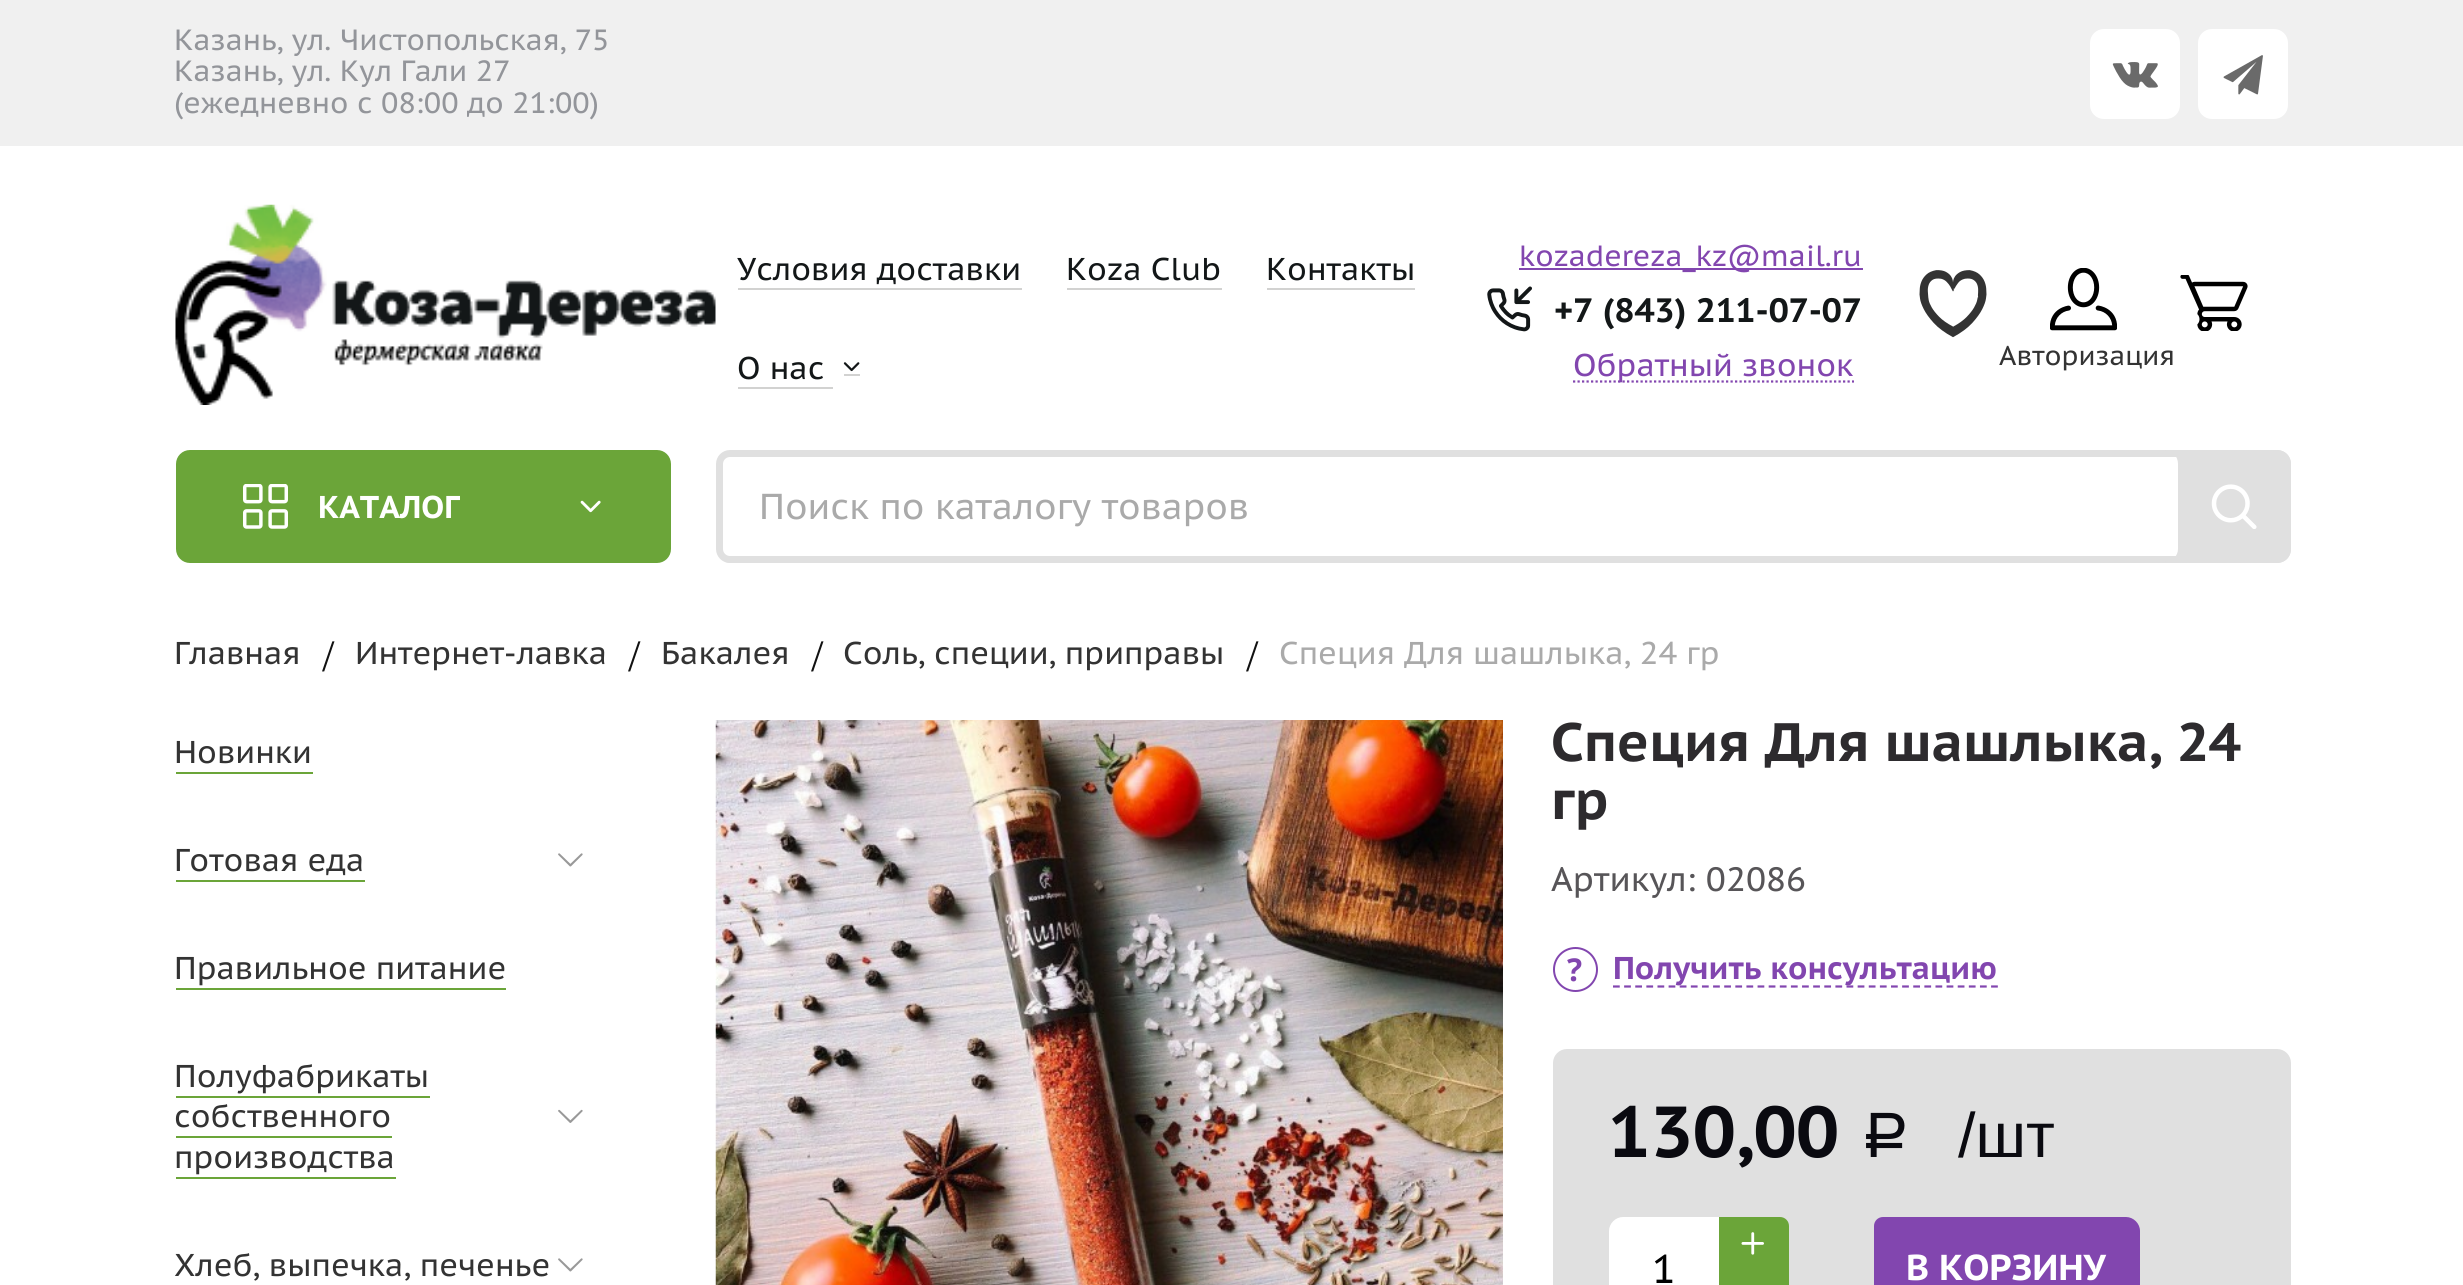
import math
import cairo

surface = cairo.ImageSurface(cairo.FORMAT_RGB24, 2463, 1285)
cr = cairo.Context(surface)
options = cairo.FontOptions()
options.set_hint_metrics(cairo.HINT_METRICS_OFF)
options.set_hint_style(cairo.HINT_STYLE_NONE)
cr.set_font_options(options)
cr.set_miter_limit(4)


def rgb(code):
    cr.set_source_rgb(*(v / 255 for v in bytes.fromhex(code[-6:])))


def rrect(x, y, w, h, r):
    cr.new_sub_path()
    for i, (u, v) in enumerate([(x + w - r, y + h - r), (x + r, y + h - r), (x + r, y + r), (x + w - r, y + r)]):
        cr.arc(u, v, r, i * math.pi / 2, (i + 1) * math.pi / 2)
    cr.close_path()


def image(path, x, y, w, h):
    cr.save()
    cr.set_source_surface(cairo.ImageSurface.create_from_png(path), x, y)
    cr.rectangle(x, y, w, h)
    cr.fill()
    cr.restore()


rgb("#ffffff")
cr.paint()
rgb("#f0f0f0")
cr.rectangle(0, 0, 2463, 146)
cr.fill()
rgb("#ffffff")
rrect(2090, 29, 90, 90, 14)
cr.fill()
image("img/1.png", 2112, 62, 46, 26)
rrect(2198, 29, 90, 90, 14)
cr.fill()
image("img/2.png", 2223, 55, 40, 40)
image("img/3.png", 175, 204, 541, 201)
for x, y, w, h, color in [
    (738, 288, 284, 2, "#d2d2d1"),
    (1067, 288, 155, 2, "#d2d2d1"),
    (1267, 288, 148, 2, "#d2d2d1"),
    (738, 387, 95, 2, "#d2d2d1"),
    (844, 374, 16, 2, "#d2d2d1"),
]:
    rgb(color)
    cr.rectangle(x, y, w, h)
    cr.fill()
image("img/4.png", 843, 362, 17, 10)
rgb("#8246af")
cr.rectangle(1519, 268, 344, 2)
cr.fill()
image("img/5.png", 1487, 286, 45, 46)
cr.new_path()
cr.move_to(1573, 381.5)
cr.line_to(1854, 381.5)
cr.set_line_width(2.2)
cr.set_dash([2.25, 2.25])
cr.stroke()
image("img/6.png", 1919, 270, 68, 68)
image("img/7.png", 2180, 275, 68, 56)
image("img/8.png", 2050, 268, 67, 63)
rgb("#6ba539")
rrect(176, 450, 495, 113, 14)
cr.fill()
image("img/9.png", 243, 484, 45, 45)
image("img/10.png", 580, 500, 21, 13)
rrect(719.5, 453.5, 1568, 106, 10.5)
rgb("#e0e0e0")
cr.set_line_width(7)
cr.set_dash([])
cr.stroke()
cr.new_path()
cr.move_to(725, 562)
cr.line_to(730, 563)
cr.line_to(2277, 563)
cr.curve_to(2285, 563, 2291, 557, 2291, 549)
cr.line_to(2291, 464)
cr.curve_to(2291, 456, 2285, 450, 2277, 450)
cr.line_to(2164, 450)
cr.curve_to(2172, 450, 2178, 456, 2178, 464)
cr.line_to(2178, 549)
cr.curve_to(2178, 556, 2172, 562, 2164, 562)
cr.close_path()
cr.fill()
image("img/11.png", 2211, 484, 46, 45)
rgb("#6ba539")
cr.rectangle(176, 772, 137, 2)
cr.fill()
cr.rectangle(176, 880, 189, 2)
cr.fill()
image("img/12.png", 558, 853, 25, 14)
for x, y, w, h, color in [
    (176, 988, 330, 2, "#6ba539"),
    (176, 1096, 254, 2, "#6ba539"),
    (176, 1136, 216, 2, "#6ba539"),
    (176, 1177, 220, 2, "#6ba539"),
]:
    rgb(color)
    cr.rectangle(x, y, w, h)
    cr.fill()
image("img/13.png", 558, 1109, 25, 14)
image("img/12.png", 558, 1258, 25, 14)
image("img/14.png", 715, 720, 788, 565)
cr.arc(1575.5, 969.5, 21.5, 0, 2 * math.pi)
rgb("#8246af")
cr.set_line_width(2)
cr.stroke()
cr.new_path()
cr.move_to(1613, 986.5)
cr.line_to(1998, 986.5)
cr.set_line_width(2.2)
cr.set_dash([6.75, 4.37])
cr.stroke()
rgb("#e0e0e0")
rrect(1553, 1049, 738, 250, 14)
cr.fill()
rgb("#ffffff")
cr.new_path()
cr.move_to(1623, 1217)
cr.line_to(1719, 1217)
cr.line_to(1719, 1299)
cr.line_to(1623, 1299)
cr.curve_to(1615.5, 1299, 1609, 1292.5, 1609, 1285)
cr.line_to(1609, 1231)
cr.curve_to(1609, 1223.5, 1615.5, 1217, 1623, 1217)
cr.close_path()
cr.fill()
rgb("#6ba539")
cr.new_path()
cr.move_to(1719, 1217)
cr.line_to(1780, 1217)
cr.curve_to(1785, 1217, 1789, 1221, 1789, 1226)
cr.line_to(1789, 1269)
cr.line_to(1719, 1269)
cr.close_path()
cr.fill()
image("img/15.png", 1741, 1232, 23, 23)
cr.rectangle(1719, 1269, 70, 16)
cr.fill()
rgb("#8246af")
cr.new_path()
cr.move_to(1883, 1217)
cr.line_to(2126, 1217)
cr.curve_to(2133.5, 1217, 2140, 1223.5, 2140, 1231)
cr.line_to(2140, 1285)
cr.curve_to(2140, 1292.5, 2133.5, 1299, 2126, 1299)
cr.line_to(1883, 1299)
cr.curve_to(1878, 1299, 1874, 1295, 1874, 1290)
cr.line_to(1874, 1226)
cr.curve_to(1874, 1221, 1878, 1217, 1883, 1217)
cr.close_path()
cr.fill()
cr.select_font_face("PT Sans Caption")
cr.set_font_size(29.25)
rgb("#93959a")
for x, y, s in [
    (174, 50, "Казань, ул. Чистопольская, 75"),
    (174, 81, "Казань, ул. Кул Гали 27"),
    (174, 113, "(ежедневно с 08:00 до 21:00)"),
]:
    cr.move_to(x, y)
    cr.show_text(s)
cr.set_font_size(31.5)
rgb("#131718")
for x, y, s in [
    (737, 280, "Условия доставки"),
    (1066, 280, "Koza Club"),
    (1266, 280, "Контакты"),
    (737, 379, "О нас"),
]:
    cr.move_to(x, y)
    cr.show_text(s)
cr.set_font_size(29.25)
rgb("#8246af")
cr.move_to(1519, 266)
cr.show_text("kozadereza_kz@mail.ru")
cr.select_font_face("PT Sans Caption", cairo.FONT_SLANT_NORMAL, cairo.FONT_WEIGHT_BOLD)
cr.set_font_size(33.75)
rgb("#131718")
cr.move_to(1554, 322)
cr.show_text("+7 (843) 211-07-07")
cr.select_font_face("PT Sans Caption")
cr.set_font_size(31.5)
rgb("#8246af")
cr.move_to(1573, 376)
cr.show_text("Обратный звонок")
cr.set_font_size(27)
rgb("#333333")
cr.move_to(1999, 365)
cr.show_text("Авторизация")
cr.select_font_face("PT Sans Caption", cairo.FONT_SLANT_NORMAL, cairo.FONT_WEIGHT_BOLD)
cr.set_font_size(31.5)
rgb("#ffffff")
cr.move_to(318, 518)
cr.show_text("КАТАЛОГ")
cr.select_font_face("PT Sans Caption")
cr.set_font_size(36)
rgb("#aaaaaa")
cr.move_to(759, 519)
cr.show_text("Поиск по каталогу товаров")
cr.set_font_size(31.5)
rgb("#333333")
cr.move_to(174, 664)
cr.show_text("Главная")
cr.select_font_face("Liberation Serif")
cr.set_font_size(45)
rgb("#111111")
cr.move_to(322, 671)
cr.show_text("/")
cr.select_font_face("PT Sans Caption")
cr.set_font_size(31.5)
rgb("#333333")
cr.move_to(355, 664)
cr.show_text("Интернет-лавка")
cr.select_font_face("Liberation Serif")
cr.set_font_size(45)
rgb("#111111")
cr.move_to(628, 671)
cr.show_text("/")
cr.select_font_face("PT Sans Caption")
cr.set_font_size(31.5)
rgb("#333333")
cr.move_to(661, 664)
cr.show_text("Бакалея")
cr.select_font_face("Liberation Serif")
cr.set_font_size(45)
rgb("#111111")
cr.move_to(811, 671)
cr.show_text("/")
cr.select_font_face("PT Sans Caption")
cr.set_font_size(31.5)
rgb("#333333")
cr.move_to(843, 664)
cr.show_text("Соль, специи, приправы")
cr.select_font_face("Liberation Serif")
cr.set_font_size(45)
rgb("#111111")
cr.move_to(1246, 671)
cr.show_text("/")
cr.select_font_face("PT Sans Caption")
cr.set_font_size(31.5)
rgb("#aaaaaa")
cr.move_to(1279, 664)
cr.show_text("Специя Для шашлыка, 24 гр")
rgb("#333333")
for x, y, s in [
    (174, 763, "Новинки"),
    (174, 871, "Готовая еда"),
    (174, 979, "Правильное питание"),
    (174, 1087, "Полуфабрикаты"),
    (174, 1127, "собственного"),
    (174, 1168, "производства"),
    (174, 1276, "Хлеб, выпечка, печенье"),
]:
    cr.move_to(x, y)
    cr.show_text(s)
cr.select_font_face("PT Sans Caption", cairo.FONT_SLANT_NORMAL, cairo.FONT_WEIGHT_BOLD)
cr.set_font_size(54)
rgb("#2d2b2e")
cr.move_to(1551, 761)
cr.show_text("Специя Для шашлыка, 24")
cr.move_to(1551, 819)
cr.show_text("гр")
cr.select_font_face("PT Sans Caption")
cr.set_font_size(33.75)
rgb("#575558")
cr.move_to(1551, 891)
cr.show_text("Артикул: 02086")
cr.select_font_face("Noto Sans", cairo.FONT_SLANT_NORMAL, cairo.FONT_WEIGHT_BOLD)
cr.set_font_size(31.5)
rgb("#8246af")
cr.move_to(1567, 981)
cr.show_text("?")
cr.select_font_face("PT Sans Caption", cairo.FONT_SLANT_NORMAL, cairo.FONT_WEIGHT_BOLD)
cr.move_to(1613, 979)
cr.show_text("Получить консультацию")
cr.set_font_size(72)
rgb("#0a0a10")
cr.move_to(1608, 1157)
cr.show_text("130,00")
cr.select_font_face("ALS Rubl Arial")
cr.set_font_size(63)
cr.move_to(1861, 1157)
cr.show_text("Р")
cr.select_font_face("Liberation Sans")
cr.move_to(1958, 1157)
cr.show_text("/шт")
cr.select_font_face("PT Sans Caption")
cr.set_font_size(40)
rgb("#000000")
cr.move_to(1652, 1283)
cr.show_text("1")
cr.select_font_face("PT Sans Caption", cairo.FONT_SLANT_NORMAL, cairo.FONT_WEIGHT_BOLD)
cr.set_font_size(36)
rgb("#ffffff")
cr.move_to(1906, 1280)
cr.show_text("В КОРЗИНУ")
surface.write_to_png("page.png")
